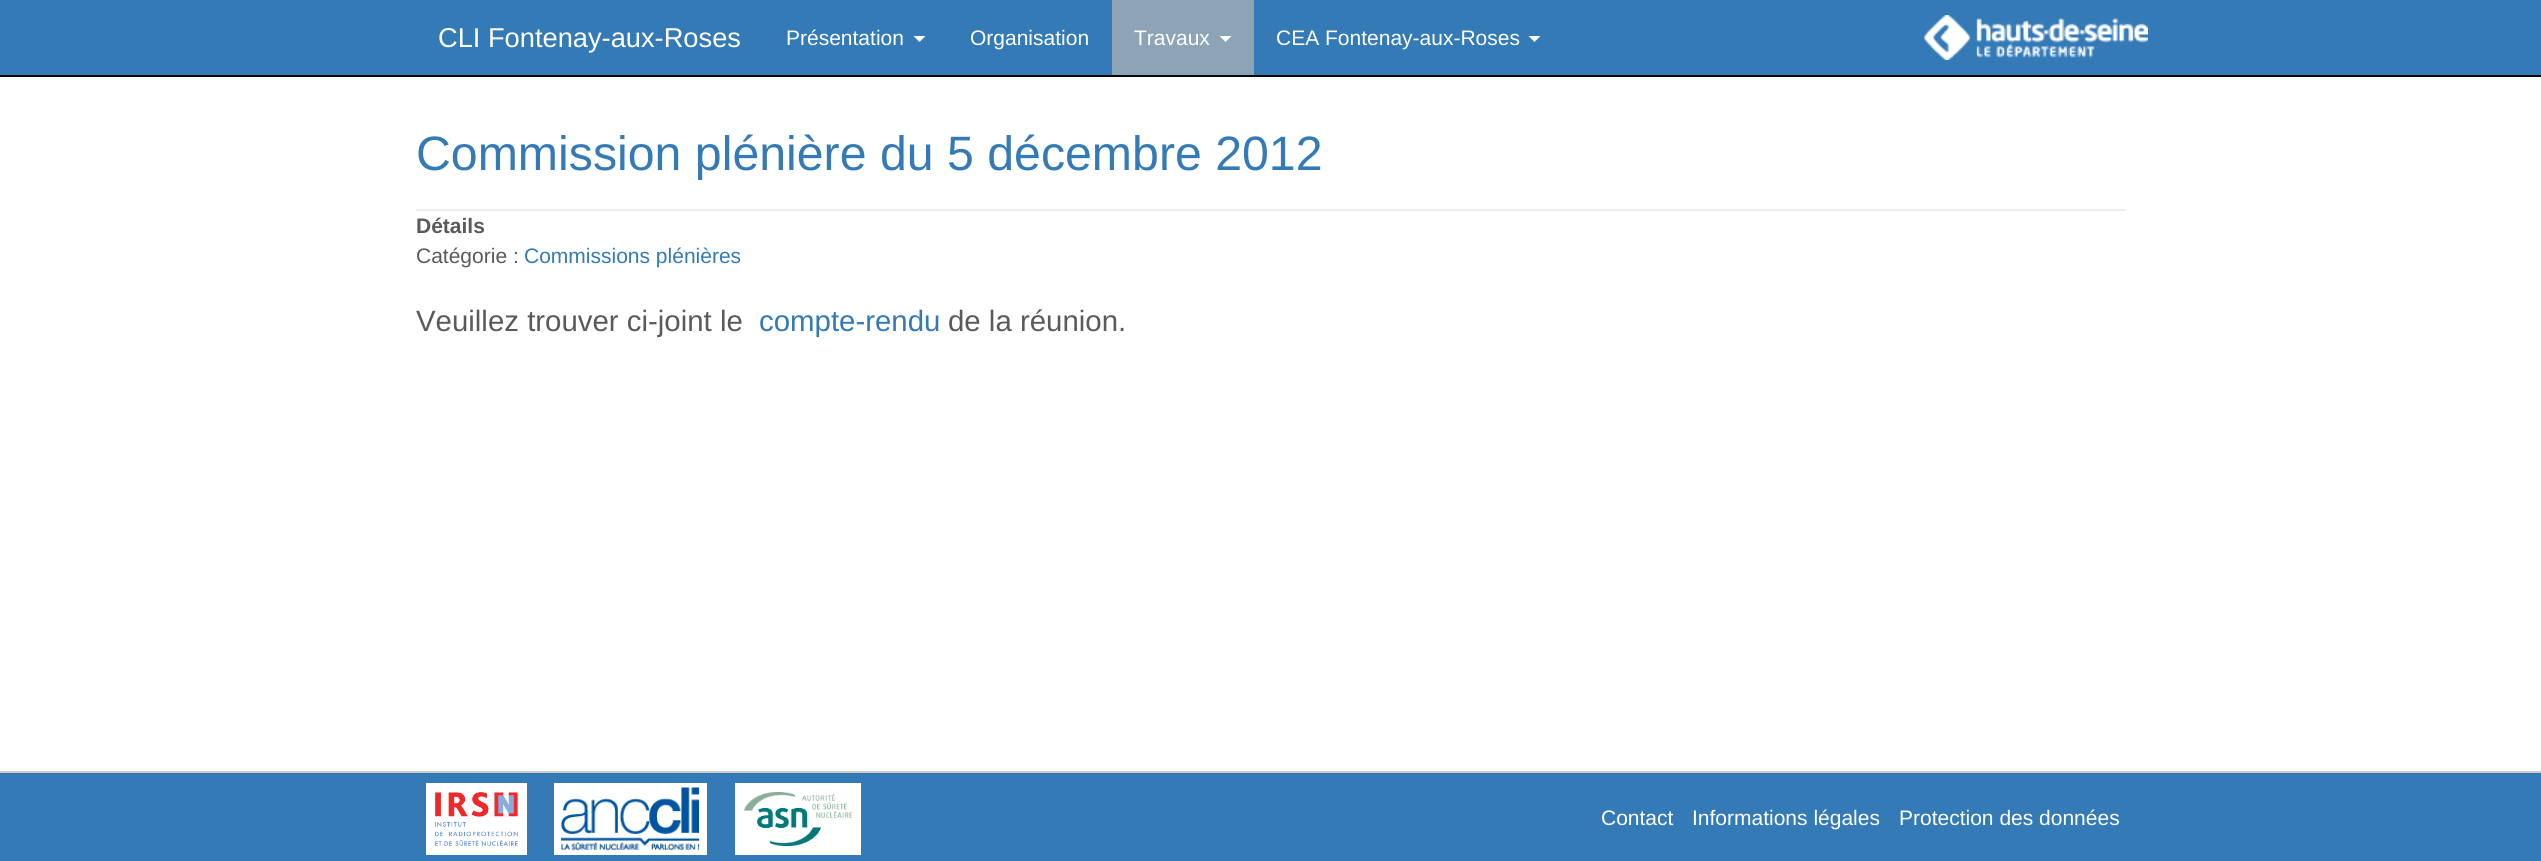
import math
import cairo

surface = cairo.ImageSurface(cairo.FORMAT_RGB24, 2541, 861)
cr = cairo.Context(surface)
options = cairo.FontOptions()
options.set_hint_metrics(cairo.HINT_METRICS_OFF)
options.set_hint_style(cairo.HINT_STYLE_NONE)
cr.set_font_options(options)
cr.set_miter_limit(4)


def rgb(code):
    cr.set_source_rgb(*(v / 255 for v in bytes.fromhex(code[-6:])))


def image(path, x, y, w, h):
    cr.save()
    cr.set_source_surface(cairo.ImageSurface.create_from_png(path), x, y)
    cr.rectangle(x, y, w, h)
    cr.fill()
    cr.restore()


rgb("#ffffff")
cr.paint()
rgb("#337ab7")
cr.rectangle(0, 0, 2541, 75)
cr.fill()
rgb("#080808")
cr.rectangle(0, 75, 2541, 2)
cr.fill()
rgb("#ffffff")
cr.new_path()
cr.move_to(913.5, 36)
cr.line_to(925.5, 36)
cr.line_to(919.5, 42)
cr.close_path()
cr.fill()
rgb("#8da3b6")
cr.rectangle(1112, 0, 142, 75)
cr.fill()
rgb("#ffffff")
cr.new_path()
cr.move_to(1219.5, 36)
cr.line_to(1231.5, 36)
cr.line_to(1225.5, 42)
cr.close_path()
cr.fill()
cr.new_path()
cr.move_to(1528.5, 36)
cr.line_to(1540.5, 36)
cr.line_to(1534.5, 42)
cr.close_path()
cr.fill()
image("img/1.png", 1924, 15, 224, 45)
for x, y, w, h, color in [
    (416, 209, 1710, 2, "#eeeeee"),
    (0, 773, 2541, 88, "#337ab7"),
    (0, 771, 2541, 2, "#cccccc"),
    (426, 783, 101, 72, "#ffffff"),
    (554, 783, 153, 72, "#ffffff"),
    (735, 783, 126, 72, "#ffffff"),
]:
    rgb(color)
    cr.rectangle(x, y, w, h)
    cr.fill()
image("img/2.png", 435, 792, 83, 54)
image("img/3.png", 561, 787, 139, 64)
image("img/4.png", 744, 791, 109, 56)
cr.select_font_face("Liberation Sans")
cr.set_font_size(27.25)
cr.move_to(438, 47)
cr.show_text("CLI Fontenay-aux-Roses")
cr.set_font_size(21)
for x, y, s in [
    (786, 45, "Présentation"),
    (970, 45, "Organisation"),
    (1134, 45, "Travaux"),
    (1276, 45, "CEA Fontenay-aux-Roses"),
]:
    cr.move_to(x, y)
    cr.show_text(s)
cr.set_font_size(48.25)
rgb("#337ab7")
cr.move_to(416, 170)
cr.show_text("Commission plénière du 5 décembre 2012")
cr.select_font_face("Liberation Sans", cairo.FONT_SLANT_NORMAL, cairo.FONT_WEIGHT_BOLD)
cr.set_font_size(21)
rgb("#5a5a5a")
cr.move_to(416, 233)
cr.show_text("Détails")
cr.select_font_face("Liberation Sans")
cr.move_to(416, 263)
cr.show_text("Catégorie :")
rgb("#337ab7")
cr.move_to(524, 263)
cr.show_text("Commissions plénières")
cr.set_font_size(29.4)
rgb("#5a5a5a")
cr.move_to(416, 331)
cr.show_text("Veuillez trouver ci-joint le")
rgb("#337ab7")
cr.move_to(759, 331)
cr.show_text("compte-rendu")
rgb("#5a5a5a")
cr.move_to(948, 331)
cr.show_text("de la réunion.")
cr.set_font_size(21)
rgb("#ffffff")
for x, y, s in [
    (1601, 825, "Contact"),
    (1692, 825, "Informations légales"),
    (1899, 825, "Protection des données"),
]:
    cr.move_to(x, y)
    cr.show_text(s)
surface.write_to_png("page.png")
